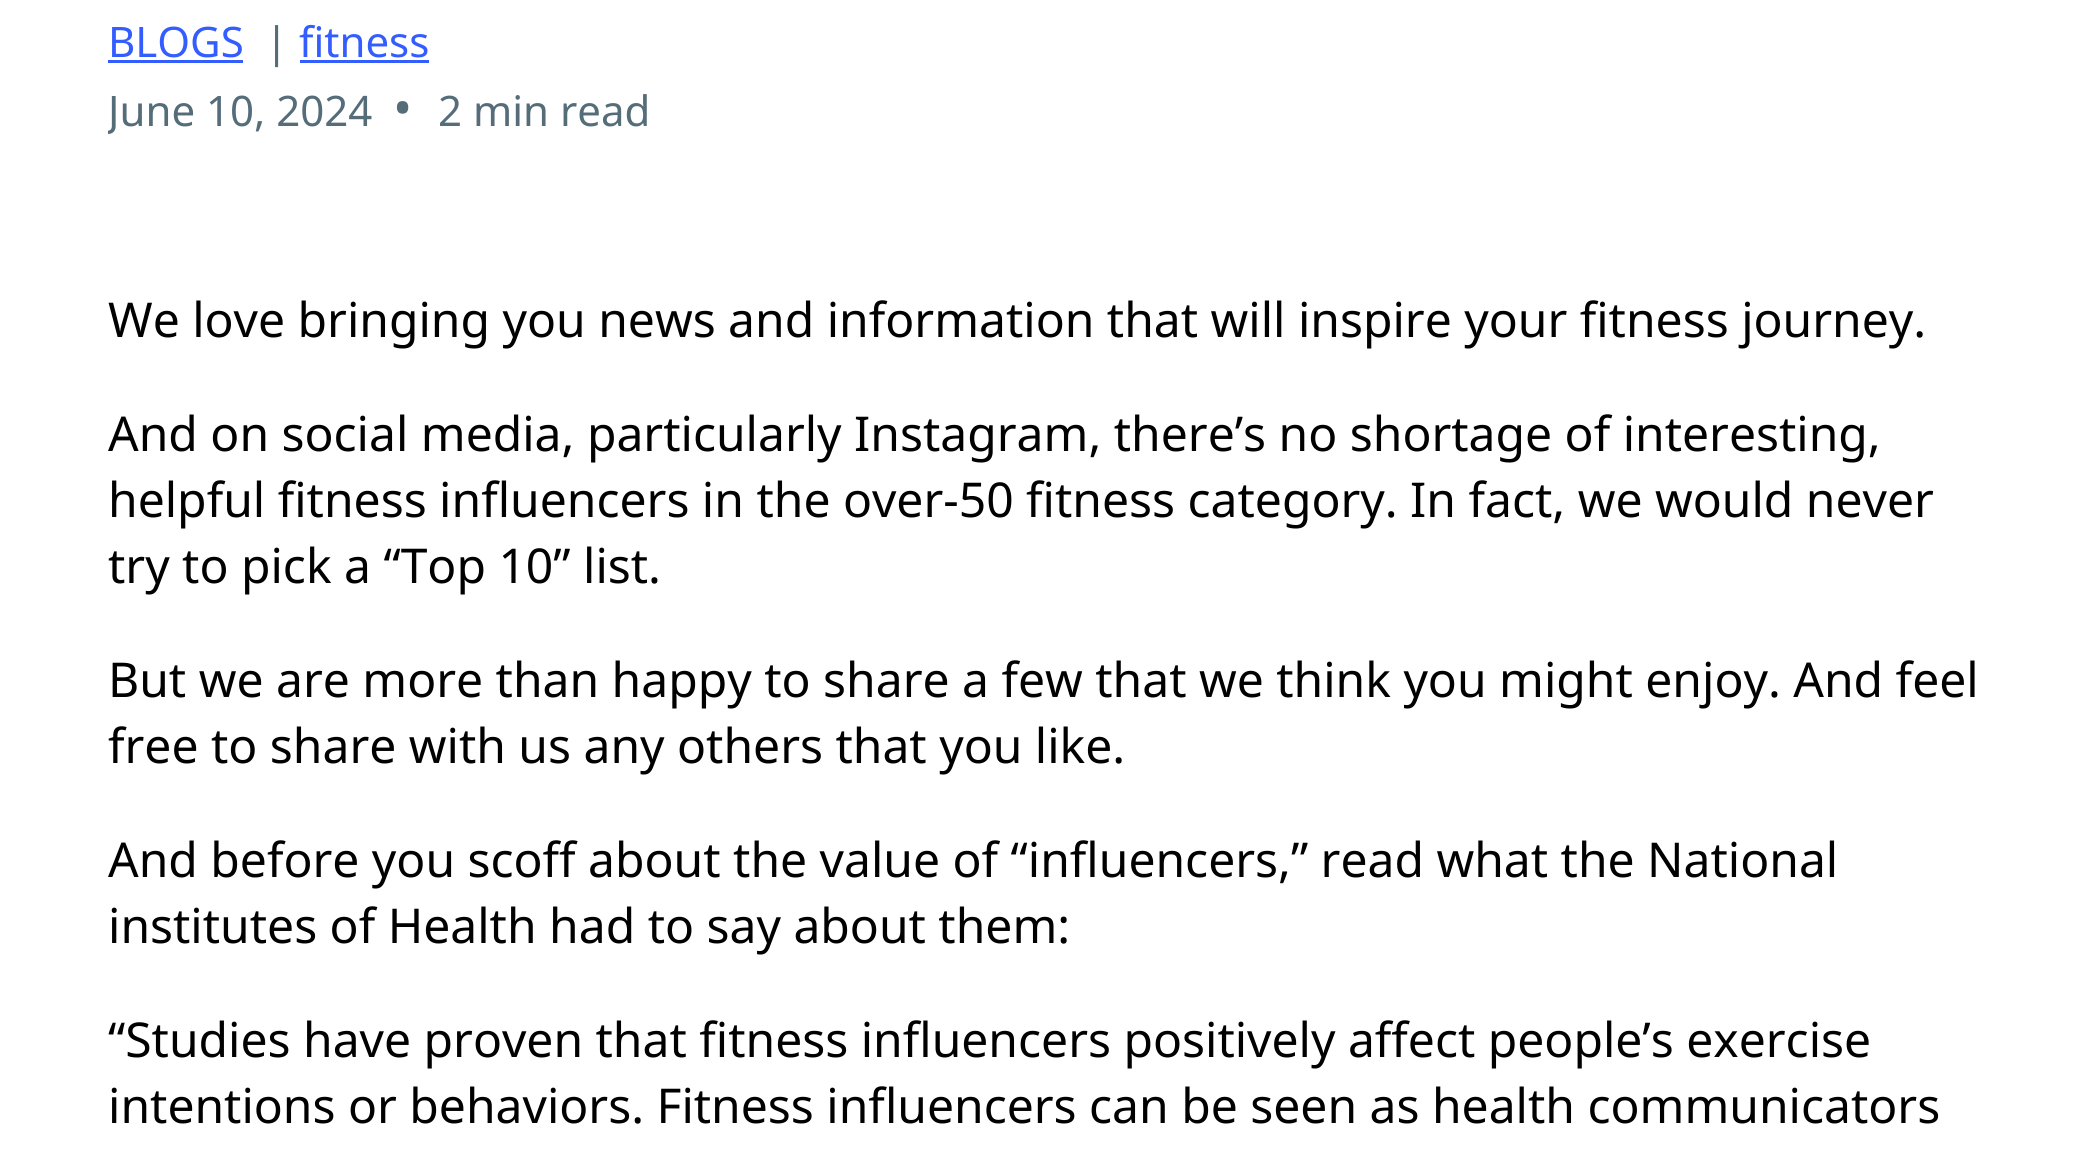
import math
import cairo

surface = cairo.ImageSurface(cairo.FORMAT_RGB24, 2092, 1152)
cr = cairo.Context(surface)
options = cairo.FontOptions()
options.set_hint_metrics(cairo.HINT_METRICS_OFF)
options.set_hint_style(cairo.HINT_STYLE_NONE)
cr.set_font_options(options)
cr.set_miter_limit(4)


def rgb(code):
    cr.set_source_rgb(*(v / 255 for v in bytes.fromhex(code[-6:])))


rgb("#ffffff")
cr.paint()
rgb("#335dff")
cr.rectangle(108, 60, 135, 3)
cr.fill()
cr.rectangle(300, 60, 129, 3)
cr.fill()
cr.select_font_face("Noto Sans")
cr.set_font_size(42)
cr.move_to(108, 57)
cr.show_text("BLOGS")
rgb("#556c79")
cr.move_to(265, 57)
cr.show_text("|")
rgb("#335dff")
cr.move_to(299, 57)
cr.show_text("fitness")
cr.save()
cr.rectangle(108, 0, 1878, 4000)
cr.clip()
rgb("#556c79")
cr.move_to(108, 126)
cr.show_text("June 10, 2024")
cr.restore()
cr.set_font_size(51)
rgb("#556c79")
cr.move_to(393, 126)
cr.show_text("•")
cr.set_font_size(42)
cr.move_to(438, 126)
cr.show_text("2 min read")
cr.set_font_size(48)
rgb("#000000")
for x, y, s in [
    (108, 337, "We love bringing you news and information that will inspire your fitness journey."),
    (108, 451, "And on social media, particularly Instagram, there’s no shortage of interesting,"),
    (108, 517, "helpful fitness influencers in the over-50 fitness category. In fact, we would never"),
    (108, 583, "try to pick a “Top 10” list."),
    (108, 697, "But we are more than happy to share a few that we think you might enjoy. And feel"),
    (108, 763, "free to share with us any others that you like."),
    (108, 877, "And before you scoff about the value of “influencers,” read what the National"),
    (108, 943, "institutes of Health had to say about them:"),
    (108, 1057, "“Studies have proven that fitness influencers positively affect people’s exercise"),
    (108, 1123, "intentions or behaviors. Fitness influencers can be seen as health communicators"),
]:
    cr.move_to(x, y)
    cr.show_text(s)
surface.write_to_png("page.png")
